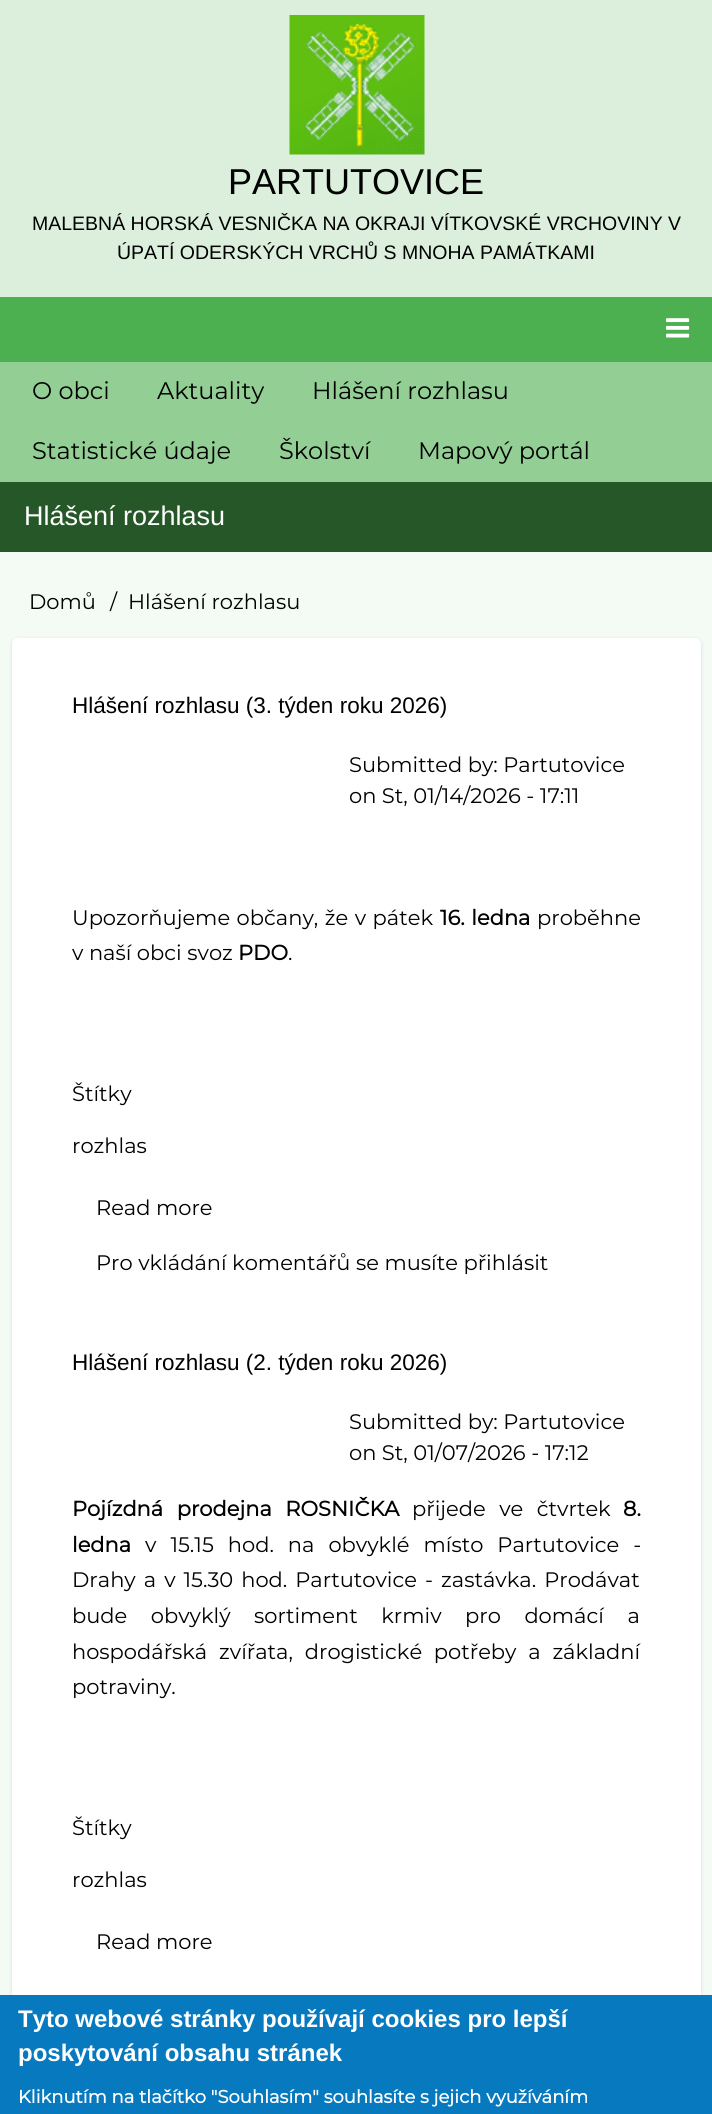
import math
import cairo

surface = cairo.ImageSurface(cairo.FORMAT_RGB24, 712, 2114)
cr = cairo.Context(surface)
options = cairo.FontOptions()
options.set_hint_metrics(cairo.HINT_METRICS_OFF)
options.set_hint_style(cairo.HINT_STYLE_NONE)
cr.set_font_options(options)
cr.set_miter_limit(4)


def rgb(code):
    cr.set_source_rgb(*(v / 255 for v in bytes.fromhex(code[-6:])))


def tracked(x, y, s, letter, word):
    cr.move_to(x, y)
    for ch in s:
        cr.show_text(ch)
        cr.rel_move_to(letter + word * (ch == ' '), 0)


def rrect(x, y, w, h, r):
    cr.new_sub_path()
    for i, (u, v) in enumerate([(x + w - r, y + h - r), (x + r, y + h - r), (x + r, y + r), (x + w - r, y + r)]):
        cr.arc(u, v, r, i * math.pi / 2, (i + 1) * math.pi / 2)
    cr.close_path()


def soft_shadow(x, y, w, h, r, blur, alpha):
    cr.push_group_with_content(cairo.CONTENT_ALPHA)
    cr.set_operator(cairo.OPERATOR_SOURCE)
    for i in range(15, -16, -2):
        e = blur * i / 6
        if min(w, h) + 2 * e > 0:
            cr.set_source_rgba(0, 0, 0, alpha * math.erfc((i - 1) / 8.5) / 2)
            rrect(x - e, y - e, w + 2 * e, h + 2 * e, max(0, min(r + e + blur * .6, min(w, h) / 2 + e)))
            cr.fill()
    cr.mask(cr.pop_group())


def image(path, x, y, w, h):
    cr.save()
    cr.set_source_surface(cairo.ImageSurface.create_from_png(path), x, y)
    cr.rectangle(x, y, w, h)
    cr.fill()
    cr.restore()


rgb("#dbefdc")
cr.paint()
image("img/1.png", 289, 15, 136, 140)
rgb("#4caf50")
cr.rectangle(0, 297, 712, 65)
cr.fill()
image("img/2.png", 666, 318, 24, 20)
for x, y, w, h, color in [
    (0, 362, 712, 120, "#93cf95"),
    (0, 482, 712, 70, "#265728"),
    (0, 552, 712, 1443, "#f4faf4"),
]:
    rgb(color)
    cr.rectangle(x, y, w, h)
    cr.fill()
rgb("#000000")
soft_shadow(12, 639, 689, 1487, 6, 2, 0.12)
rgb("#ffffff")
rrect(12, 638, 689, 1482, 6)
cr.fill()
rgb("#0779bf")
cr.rectangle(0, 1995, 712, 119)
cr.fill()
cr.select_font_face("Liberation Sans")
cr.set_font_size(36)
rgb("#000000")
cr.move_to(228, 194)
cr.show_text("PARTUTOVICE")
cr.set_font_size(19.5)
cr.move_to(32, 230)
cr.show_text("MALEBNÁ HORSKÁ VESNIČKA NA OKRAJI VÍTKOVSKÉ VRCHOVINY V")
cr.move_to(117, 259)
cr.show_text("ÚPATÍ ODERSKÝCH VRCHŮ S MNOHA PAMÁTKAMI")
cr.select_font_face("Montserrat Thin")
cr.set_font_size(24)
for x, y, s in [
    (32, 399, "O obci"),
    (157, 399, "Aktuality"),
    (312, 399, "Hlášení rozhlasu"),
    (32, 459, "Statistické údaje"),
    (279, 459, "Školství"),
    (418, 459, "Mapový portál"),
]:
    cr.move_to(x, y)
    cr.show_text(s)
cr.select_font_face("Liberation Sans")
cr.set_font_size(27)
rgb("#ffffff")
cr.move_to(24, 525)
cr.show_text("Hlášení rozhlasu")
cr.select_font_face("Montserrat Thin")
cr.set_font_size(21)
rgb("#000000")
for x, y, s in [
    (29, 609, "Domů"),
    (110, 609, "/"),
    (128, 609, "Hlášení rozhlasu"),
]:
    cr.move_to(x, y)
    cr.show_text(s)
cr.select_font_face("Liberation Sans")
cr.set_font_size(22.5)
cr.move_to(72, 713)
cr.show_text("Hlášení rozhlasu (3. týden roku 2026)")
cr.select_font_face("Montserrat Thin")
cr.set_font_size(21)
cr.move_to(349, 772)
cr.show_text("Submitted by: Partutovice")
cr.move_to(349, 803)
cr.show_text("on St, 01/14/2026 - 17:11")
tracked(72, 925, "Upozorňujeme občany, že v pátek", 0, 1)
cr.select_font_face("Montserrat", cairo.FONT_SLANT_NORMAL, cairo.FONT_WEIGHT_BOLD)
tracked(440, 925, "16. ledna", 0, 1)
cr.select_font_face("Montserrat Thin")
cr.move_to(537, 925)
cr.show_text("proběhne")
cr.move_to(72, 960)
cr.show_text("v naší obci svoz")
cr.select_font_face("Montserrat", cairo.FONT_SLANT_NORMAL, cairo.FONT_WEIGHT_BOLD)
cr.move_to(238, 960)
cr.show_text("PDO")
cr.select_font_face("Montserrat Thin")
for x, y, s in [
    (288, 960, "."),
    (72, 1101, "Štítky"),
    (72, 1153, "rozhlas"),
    (96, 1215, "Read more"),
    (96, 1270, "Pro vkládání komentářů se musíte přihlásit"),
]:
    cr.move_to(x, y)
    cr.show_text(s)
cr.select_font_face("Liberation Sans")
cr.set_font_size(22.5)
cr.move_to(72, 1370)
cr.show_text("Hlášení rozhlasu (2. týden roku 2026)")
cr.select_font_face("Montserrat Thin")
cr.set_font_size(21)
cr.move_to(349, 1429)
cr.show_text("Submitted by: Partutovice")
cr.move_to(349, 1460)
cr.show_text("on St, 01/07/2026 - 17:12")
cr.select_font_face("Montserrat", cairo.FONT_SLANT_NORMAL, cairo.FONT_WEIGHT_BOLD)
tracked(72, 1516, "Pojízdná prodejna ROSNIČKA", 0, 8)
cr.select_font_face("Montserrat Thin")
tracked(412, 1516, "přijede ve čtvrtek", 0, 8)
cr.select_font_face("Montserrat", cairo.FONT_SLANT_NORMAL, cairo.FONT_WEIGHT_BOLD)
cr.move_to(623, 1516)
cr.show_text("8.")
cr.move_to(72, 1552)
cr.show_text("ledna")
cr.select_font_face("Montserrat Thin")
tracked(145, 1552, "v 15.15 hod. na obvyklé místo Partutovice -", 0, 8.5)
tracked(72, 1587, "Drahy a v 15.30 hod. Partutovice - zastávka. Prodávat", 0, 2.5)
tracked(72, 1623, "bude obvyklý sortiment krmiv pro domácí a", 0, 18)
tracked(72, 1659, "hospodářská zvířata, drogistické potřeby a základní", 0, 6.25)
for x, y, s in [
    (72, 1694, "potraviny."),
    (72, 1835, "Štítky"),
    (72, 1887, "rozhlas"),
    (96, 1949, "Read more"),
]:
    cr.move_to(x, y)
    cr.show_text(s)
cr.select_font_face("Liberation Sans", cairo.FONT_SLANT_NORMAL, cairo.FONT_WEIGHT_BOLD)
cr.set_font_size(24)
rgb("#ffffff")
cr.move_to(18, 2027)
cr.show_text("Tyto webové stránky používají cookies pro lepší")
cr.move_to(18, 2061)
cr.show_text("poskytování obsahu stránek")
cr.select_font_face("Montserrat", cairo.FONT_SLANT_NORMAL, cairo.FONT_WEIGHT_BOLD)
cr.set_font_size(18)
cr.move_to(18, 2103)
cr.show_text("Kliknutím na tlačítko \"Souhlasím\" souhlasíte s jejich využíváním")
surface.write_to_png("page.png")
